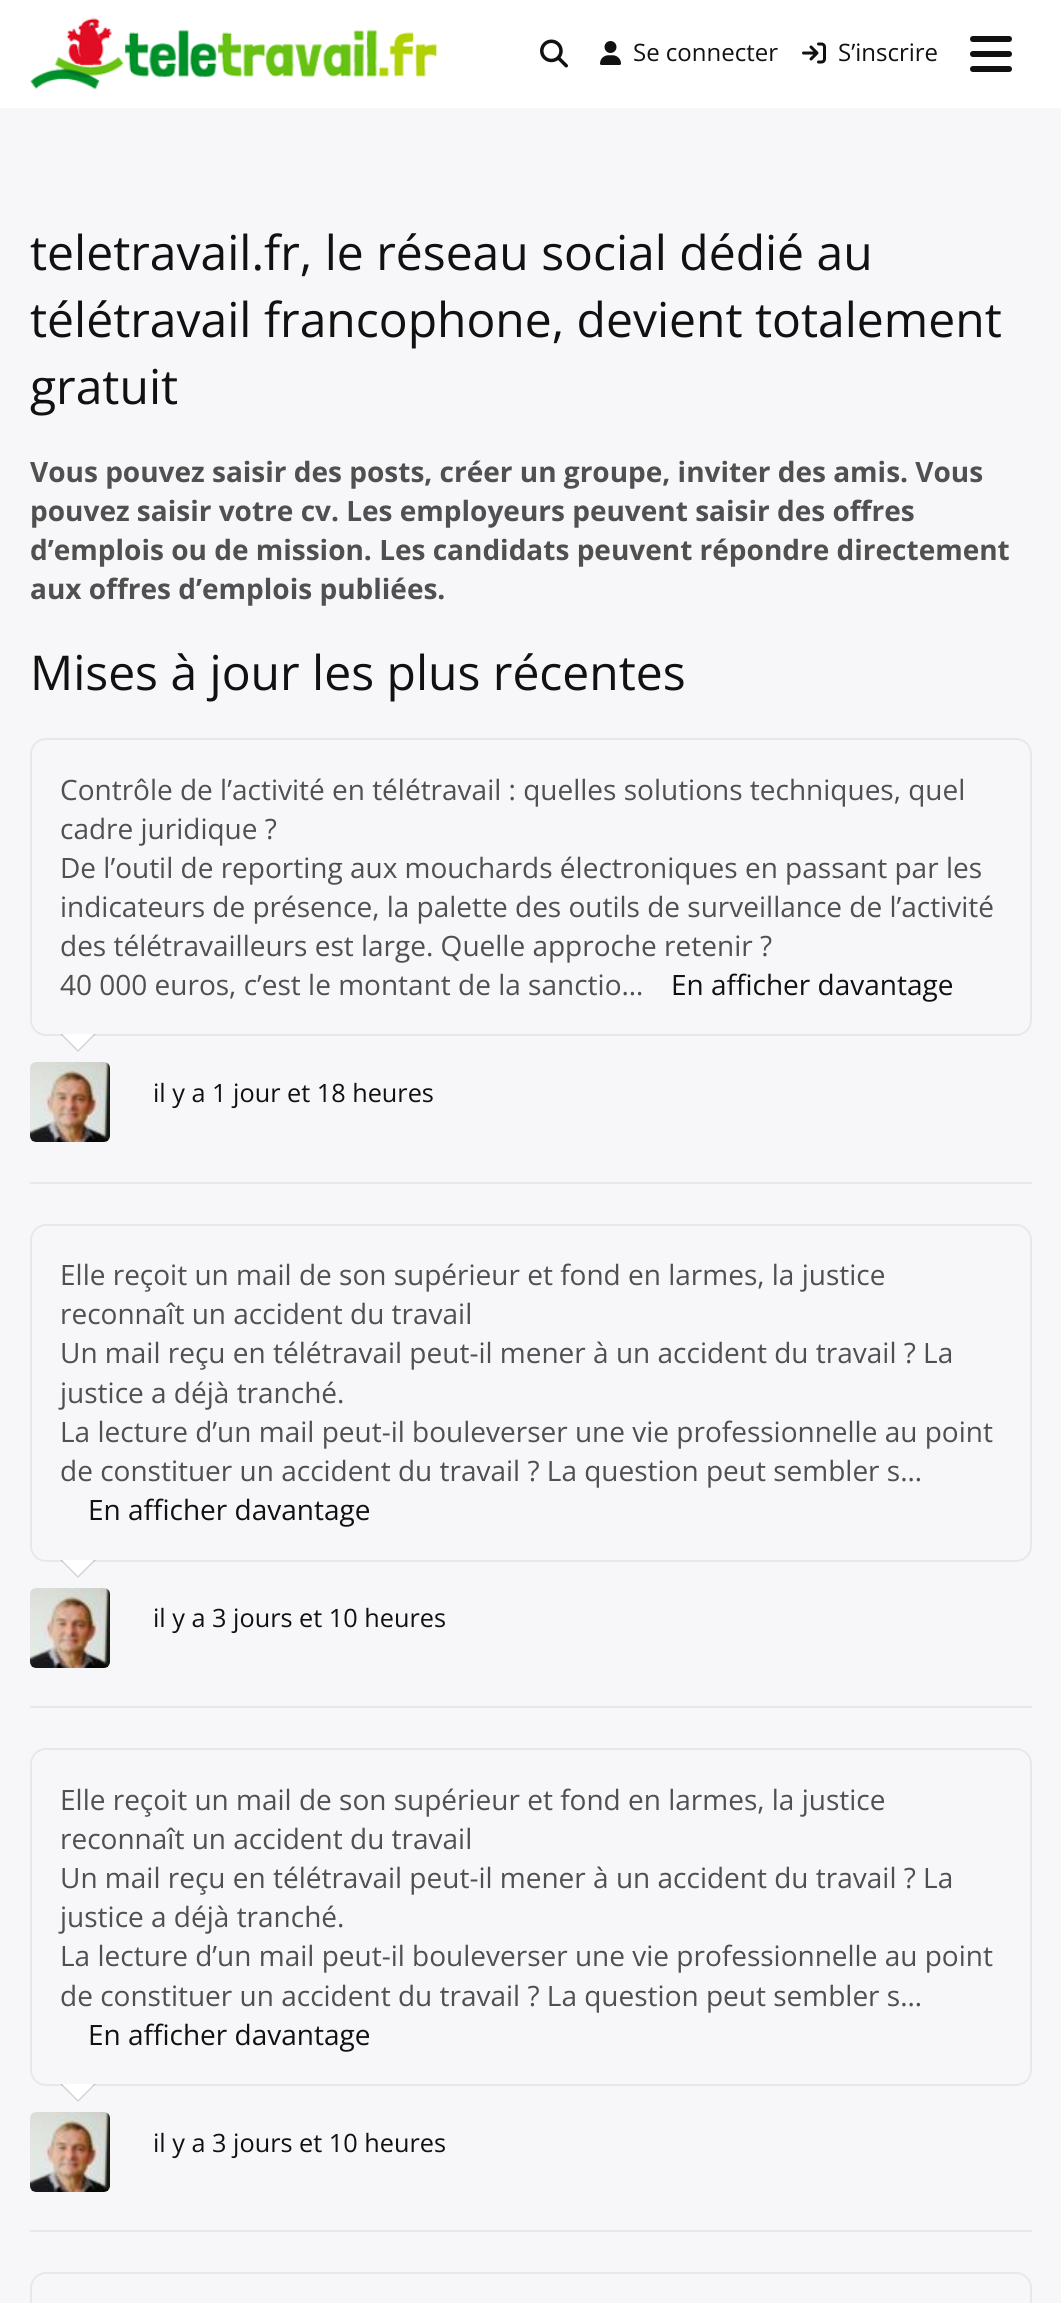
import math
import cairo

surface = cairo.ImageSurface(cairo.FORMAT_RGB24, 1061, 2303)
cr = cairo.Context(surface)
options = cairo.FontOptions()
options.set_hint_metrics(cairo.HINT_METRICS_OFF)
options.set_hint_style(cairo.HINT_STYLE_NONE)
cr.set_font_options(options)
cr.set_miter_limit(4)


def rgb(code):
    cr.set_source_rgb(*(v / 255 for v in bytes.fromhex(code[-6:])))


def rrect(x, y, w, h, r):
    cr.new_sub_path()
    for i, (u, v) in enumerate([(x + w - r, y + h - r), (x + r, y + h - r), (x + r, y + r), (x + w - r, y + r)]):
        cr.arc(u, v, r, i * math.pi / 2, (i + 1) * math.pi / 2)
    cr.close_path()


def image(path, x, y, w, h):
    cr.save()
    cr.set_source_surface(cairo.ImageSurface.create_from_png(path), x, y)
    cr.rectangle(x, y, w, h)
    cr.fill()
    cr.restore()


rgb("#f7f7f9")
cr.paint()
rgb("#ffffff")
cr.rectangle(0, 0, 1061, 108)
cr.fill()
image("img/1.png", 30, 17, 408, 73)
image("img/2.png", 540, 39, 28, 29)
image("img/3.png", 600, 41, 21, 24)
image("img/4.png", 802, 42, 24, 22)
image("img/5.png", 970, 36, 42, 36)
rrect(31, 739, 1000, 296, 15)
rgb("#e8e8e8")
cr.stroke()
cr.set_source_rgba(0, 0, 0, 0.15)
cr.new_path()
cr.move_to(60, 1034)
cr.line_to(96, 1034)
cr.line_to(78, 1052)
cr.close_path()
cr.fill()
rgb("#ffffff")
cr.new_path()
cr.move_to(62, 1034)
cr.line_to(94, 1034)
cr.line_to(78, 1050)
cr.close_path()
cr.fill()
rgb("#e8e8e8")
cr.rectangle(30, 1182, 1002, 2)
cr.fill()
image("img/6.png", 30, 1062, 80, 80)
rrect(31, 1225, 1000, 336, 15)
cr.stroke()
cr.set_source_rgba(0, 0, 0, 0.15)
cr.new_path()
cr.move_to(60, 1560)
cr.line_to(96, 1560)
cr.line_to(78, 1578)
cr.close_path()
cr.fill()
rgb("#ffffff")
cr.new_path()
cr.move_to(62, 1560)
cr.line_to(94, 1560)
cr.line_to(78, 1576)
cr.close_path()
cr.fill()
rgb("#e8e8e8")
cr.rectangle(30, 1706, 1002, 2)
cr.fill()
image("img/6.png", 30, 1588, 80, 80)
rrect(31, 1749, 1000, 336, 15)
cr.stroke()
cr.set_source_rgba(0, 0, 0, 0.15)
cr.new_path()
cr.move_to(60, 2084)
cr.line_to(96, 2084)
cr.line_to(78, 2102)
cr.close_path()
cr.fill()
rgb("#ffffff")
cr.new_path()
cr.move_to(62, 2084)
cr.line_to(94, 2084)
cr.line_to(78, 2100)
cr.close_path()
cr.fill()
rgb("#e8e8e8")
cr.rectangle(30, 2230, 1002, 2)
cr.fill()
image("img/6.png", 30, 2112, 80, 80)
rrect(31, 2273, 1000, 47, 15)
cr.stroke()
cr.select_font_face("Open Sans")
cr.set_font_size(24)
rgb("#111111")
cr.move_to(633, 61)
cr.show_text("Se connecter")
cr.move_to(838, 61)
cr.show_text("S’inscrire")
cr.set_font_size(48)
for x, y, s in [
    (30, 270, "teletravail.fr, le réseau social dédié au"),
    (30, 337, "télétravail francophone, devient totalement"),
    (30, 404, "gratuit"),
]:
    cr.move_to(x, y)
    cr.show_text(s)
cr.select_font_face("Open Sans", cairo.FONT_SLANT_NORMAL, cairo.FONT_WEIGHT_BOLD)
cr.set_font_size(28)
rgb("#505050")
for x, y, s in [
    (30, 482, "Vous pouvez saisir des posts, créer un groupe, inviter des amis. Vous"),
    (30, 521, "pouvez saisir votre cv. Les employeurs peuvent saisir des offres"),
    (30, 560, "d’emplois ou de mission. Les candidats peuvent répondre directement"),
    (30, 599, "aux offres d’emplois publiées."),
]:
    cr.move_to(x, y)
    cr.show_text(s)
cr.select_font_face("Open Sans")
cr.set_font_size(48)
rgb("#111111")
cr.move_to(30, 690)
cr.show_text("Mises à jour les plus récentes")
cr.set_font_size(28)
rgb("#505050")
for x, y, s in [
    (60, 800, "Contrôle de l’activité en télétravail : quelles solutions techniques, quel"),
    (60, 839, "cadre juridique ?"),
    (60, 878, "De l’outil de reporting aux mouchards électroniques en passant par les"),
    (60, 917, "indicateurs de présence, la palette des outils de surveillance de l’activité"),
    (60, 956, "des télétravailleurs est large. Quelle approche retenir ?"),
    (60, 995, "40 000 euros, c’est le montant de la sanctio…"),
]:
    cr.move_to(x, y)
    cr.show_text(s)
rgb("#111111")
cr.move_to(671, 995)
cr.show_text("En afficher davantage")
cr.set_font_size(25.25)
cr.move_to(153, 1102)
cr.show_text("il y a 1 jour et 18 heures")
cr.set_font_size(28)
rgb("#505050")
for x, y, s in [
    (60, 1285, "Elle reçoit un mail de son supérieur et fond en larmes, la justice"),
    (60, 1324, "reconnaît un accident du travail"),
    (60, 1363, "Un mail reçu en télétravail peut-il mener à un accident du travail ? La"),
    (60, 1403, "justice a déjà tranché."),
    (60, 1442, "La lecture d’un mail peut-il bouleverser une vie professionnelle au point"),
    (60, 1481, "de constituer un accident du travail ? La question peut sembler s…"),
]:
    cr.move_to(x, y)
    cr.show_text(s)
rgb("#111111")
cr.move_to(88, 1520)
cr.show_text("En afficher davantage")
cr.set_font_size(25.25)
cr.move_to(153, 1627)
cr.show_text("il y a 3 jours et 10 heures")
cr.set_font_size(28)
rgb("#505050")
for x, y, s in [
    (60, 1810, "Elle reçoit un mail de son supérieur et fond en larmes, la justice"),
    (60, 1849, "reconnaît un accident du travail"),
    (60, 1888, "Un mail reçu en télétravail peut-il mener à un accident du travail ? La"),
    (60, 1927, "justice a déjà tranché."),
    (60, 1966, "La lecture d’un mail peut-il bouleverser une vie professionnelle au point"),
    (60, 2006, "de constituer un accident du travail ? La question peut sembler s…"),
]:
    cr.move_to(x, y)
    cr.show_text(s)
rgb("#111111")
cr.move_to(88, 2045)
cr.show_text("En afficher davantage")
cr.set_font_size(25.25)
cr.move_to(153, 2152)
cr.show_text("il y a 3 jours et 10 heures")
surface.write_to_png("page.png")
